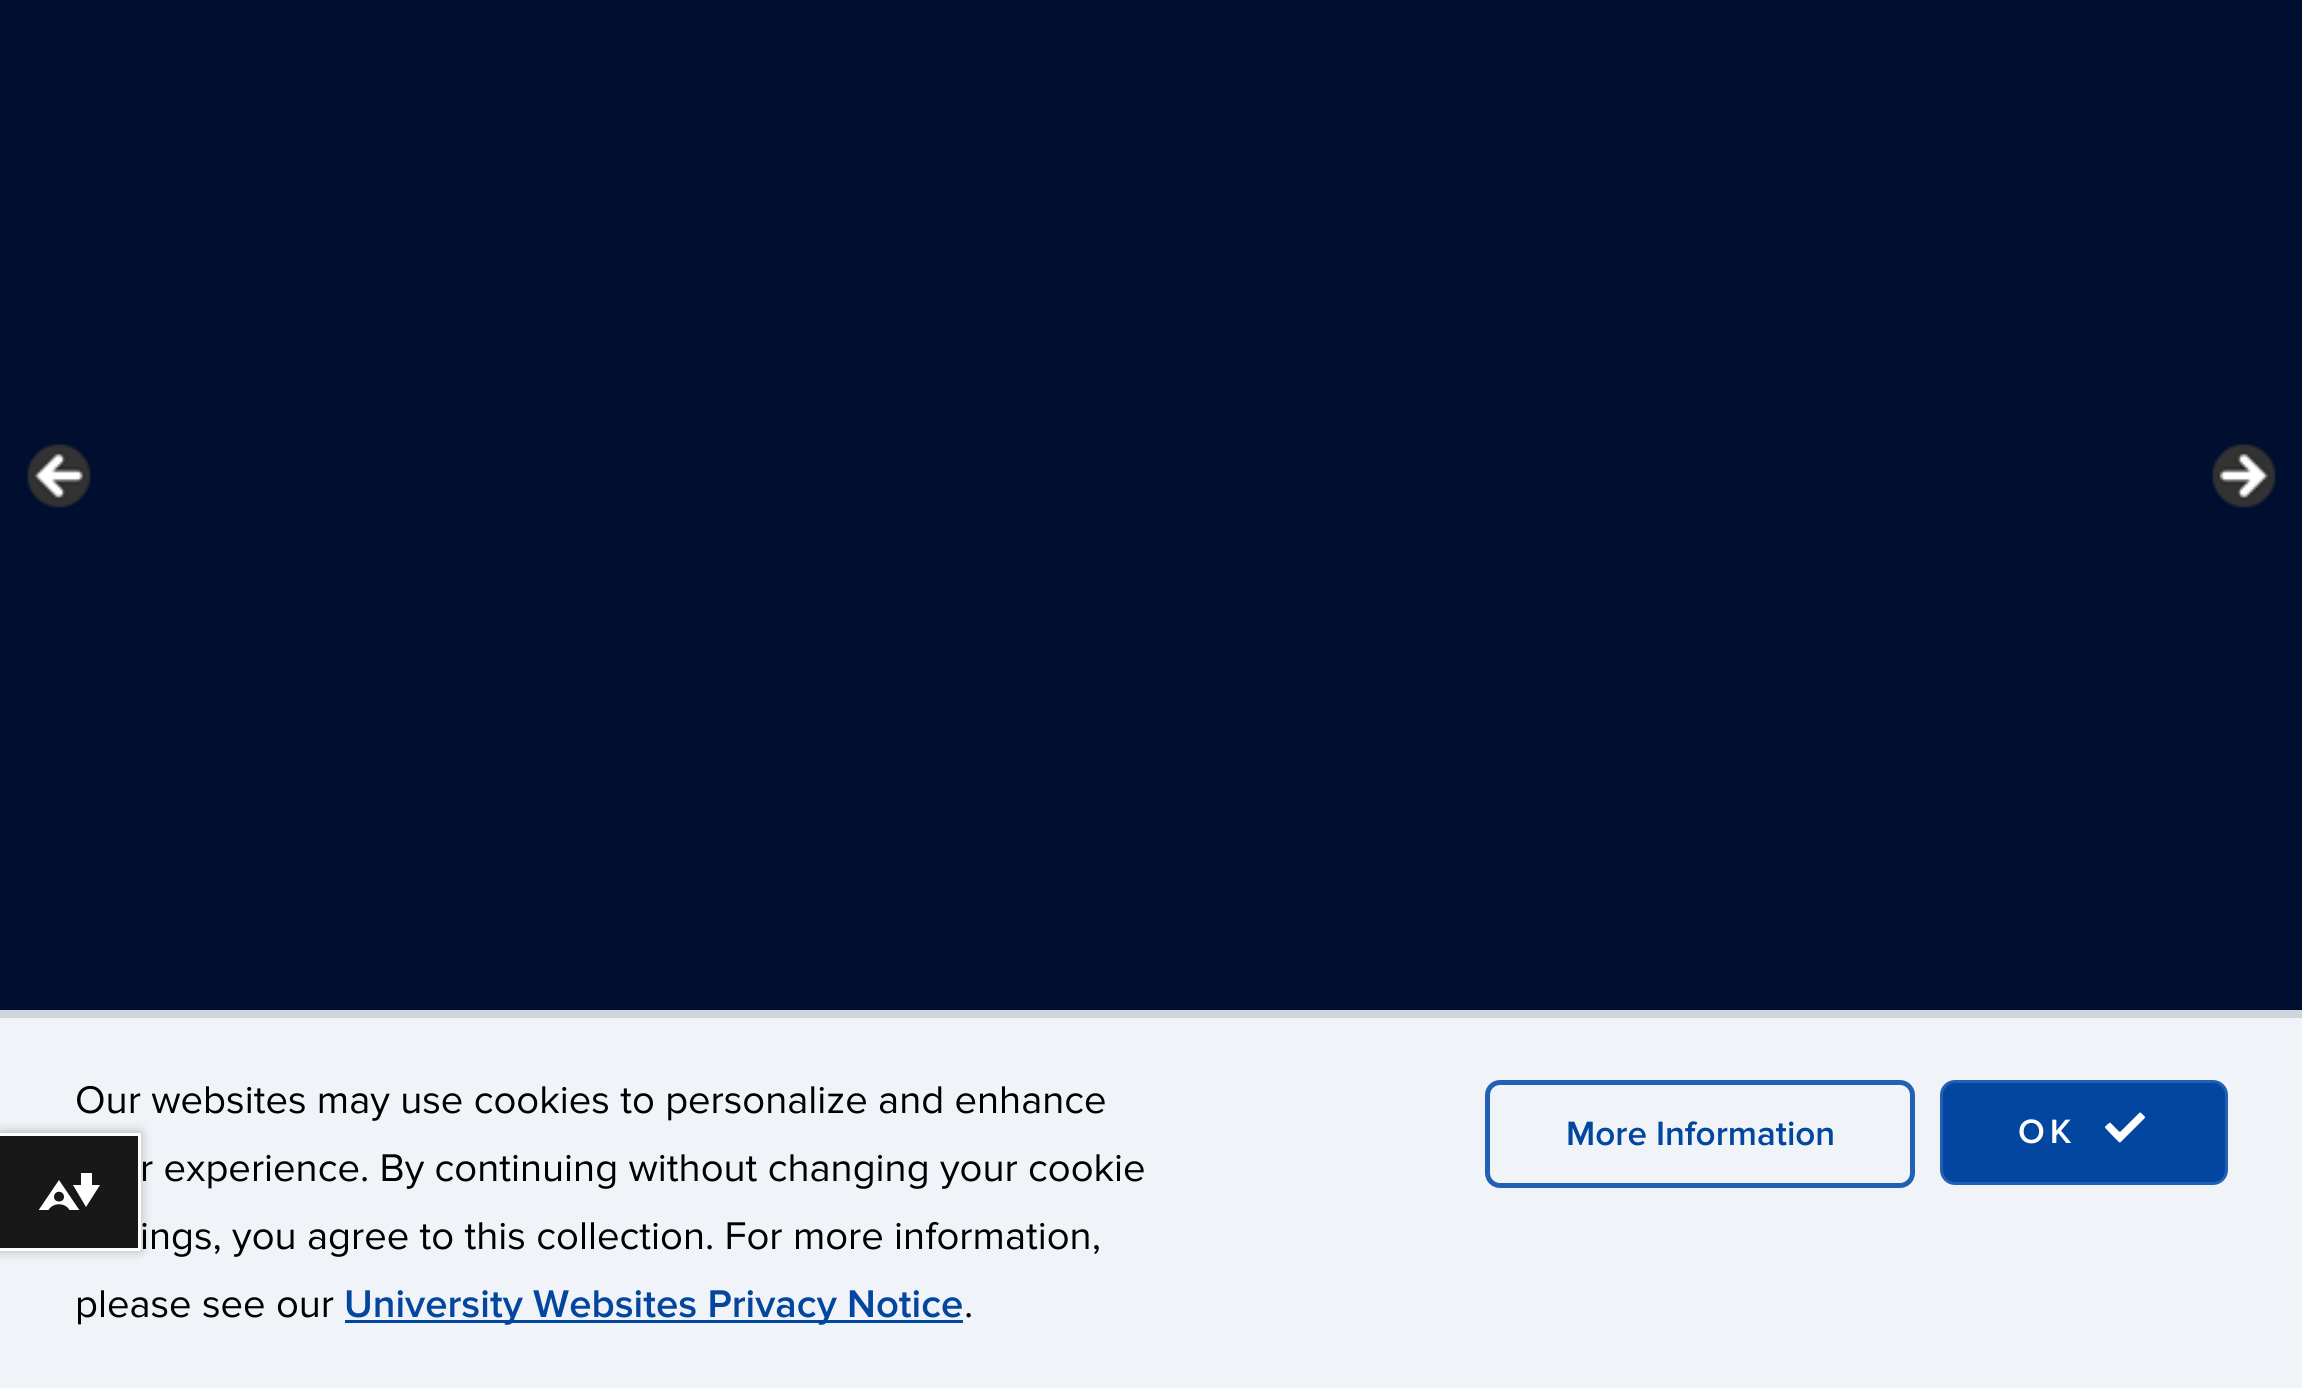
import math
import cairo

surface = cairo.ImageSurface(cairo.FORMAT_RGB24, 2302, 1388)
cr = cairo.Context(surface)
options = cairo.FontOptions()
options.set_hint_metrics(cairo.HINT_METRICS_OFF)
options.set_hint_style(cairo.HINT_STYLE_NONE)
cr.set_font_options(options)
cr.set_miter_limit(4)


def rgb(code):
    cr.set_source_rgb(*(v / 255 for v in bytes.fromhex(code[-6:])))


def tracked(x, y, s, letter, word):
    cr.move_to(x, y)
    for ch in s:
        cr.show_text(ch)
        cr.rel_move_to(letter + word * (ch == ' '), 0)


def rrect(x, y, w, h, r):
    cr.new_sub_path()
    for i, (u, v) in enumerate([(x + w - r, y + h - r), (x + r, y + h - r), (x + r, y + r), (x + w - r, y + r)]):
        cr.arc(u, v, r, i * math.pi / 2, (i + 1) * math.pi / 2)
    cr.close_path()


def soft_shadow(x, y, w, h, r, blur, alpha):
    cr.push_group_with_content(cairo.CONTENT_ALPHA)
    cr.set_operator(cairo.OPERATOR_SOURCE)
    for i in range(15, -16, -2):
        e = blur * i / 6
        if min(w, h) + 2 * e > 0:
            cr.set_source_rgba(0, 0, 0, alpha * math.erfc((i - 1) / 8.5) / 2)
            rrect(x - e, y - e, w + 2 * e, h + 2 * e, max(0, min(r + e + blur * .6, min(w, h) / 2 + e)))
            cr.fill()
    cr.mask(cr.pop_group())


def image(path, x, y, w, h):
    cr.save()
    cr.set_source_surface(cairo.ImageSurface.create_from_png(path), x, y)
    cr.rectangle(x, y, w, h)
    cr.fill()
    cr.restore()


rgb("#000e2f")
cr.paint()
image("img/1.png", 27, 444, 64, 64)
image("img/2.png", 2212, 444, 64, 64)
for x, y, w, h, color in [
    (0, 1018, 2302, 370, "#f0f3f7"),
    (0, 1010, 2302, 8, "#cfd5dd"),
    (345, 1320, 618, 3, "#03469f"),
]:
    rgb(color)
    cr.rectangle(x, y, w, h)
    cr.fill()
rrect(1487.5, 1082.5, 425, 103, 12.5)
rgb("#2061b6")
cr.set_line_width(5)
cr.stroke()
rgb("#03469f")
rrect(1941.5, 1081.5, 285, 102, 13.5)
cr.fill_preserve()
rgb("#2061b6")
cr.set_line_width(3)
cr.stroke()
image("img/3.png", 2105, 1112, 40, 31)
cr.save()
cr.set_fill_rule(cairo.FILL_RULE_EVEN_ODD)
cr.new_path()
cr.move_to(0, 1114)
cr.line_to(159, 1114)
cr.line_to(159, 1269)
cr.line_to(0, 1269)
cr.close_path()
cr.move_to(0, 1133)
cr.line_to(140, 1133)
cr.line_to(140, 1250)
cr.line_to(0, 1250)
cr.close_path()
cr.clip()
rgb("#000000")
soft_shadow(0, 1133, 140, 117, 0, 6, 0.3)
cr.restore()
cr.set_source_rgba(0, 0, 0, 0.9)
cr.rectangle(0, 1136, 138, 112)
cr.fill()
rgb("#ffffff")
cr.rectangle(0, 1133, 140, 3)
cr.rectangle(138, 1133, 3, 117)
cr.rectangle(0, 1248, 140, 3)
cr.fill()
cr.save()
cr.rectangle(38, 1173, 62, 37)
cr.clip()
cr.set_fill_rule(cairo.FILL_RULE_EVEN_ODD)
cr.new_path()
cr.move_to(100, 1185)
cr.line_to(86, 1207)
cr.line_to(73, 1185)
cr.line_to(81, 1185)
cr.line_to(81, 1172)
cr.line_to(92, 1172)
cr.line_to(92, 1185)
cr.close_path()
cr.move_to(38, 1211)
cr.line_to(59, 1180)
cr.line_to(80, 1211)
cr.line_to(70, 1211)
cr.curve_to(66, 1202, 52, 1202, 48, 1211)
cr.close_path()
cr.move_to(54, 1197)
cr.curve_to(54, 1203, 64, 1203, 64, 1197)
cr.curve_to(64, 1190, 54, 1190, 54, 1197)
cr.close_path()
cr.fill()
cr.restore()
cr.select_font_face("Proxima Nova")
cr.set_font_size(40)
rgb("#000000")
for x, y, s in [
    (75, 1113, "Our websites may use cookies to personalize and enhance"),
    (140, 1181, "r experience. By continuing without changing your cookie"),
    (140, 1249, "ings, you agree to this collection. For more information,"),
    (75, 1317, "please see our"),
]:
    cr.move_to(x, y)
    cr.show_text(s)
cr.select_font_face("Proxima Nova SemiBold")
rgb("#03469f")
cr.move_to(344, 1317)
cr.show_text("University Websites Privacy Notice")
cr.select_font_face("Proxima Nova")
rgb("#000000")
cr.move_to(964, 1317)
cr.show_text(".")
cr.select_font_face("Proxima Nova SemiBold")
cr.set_font_size(35)
rgb("#03469f")
cr.move_to(1566, 1145)
cr.show_text("More Information")
rgb("#ffffff")
tracked(2018, 1143, "OK", 5, 0)
surface.write_to_png("page.png")
